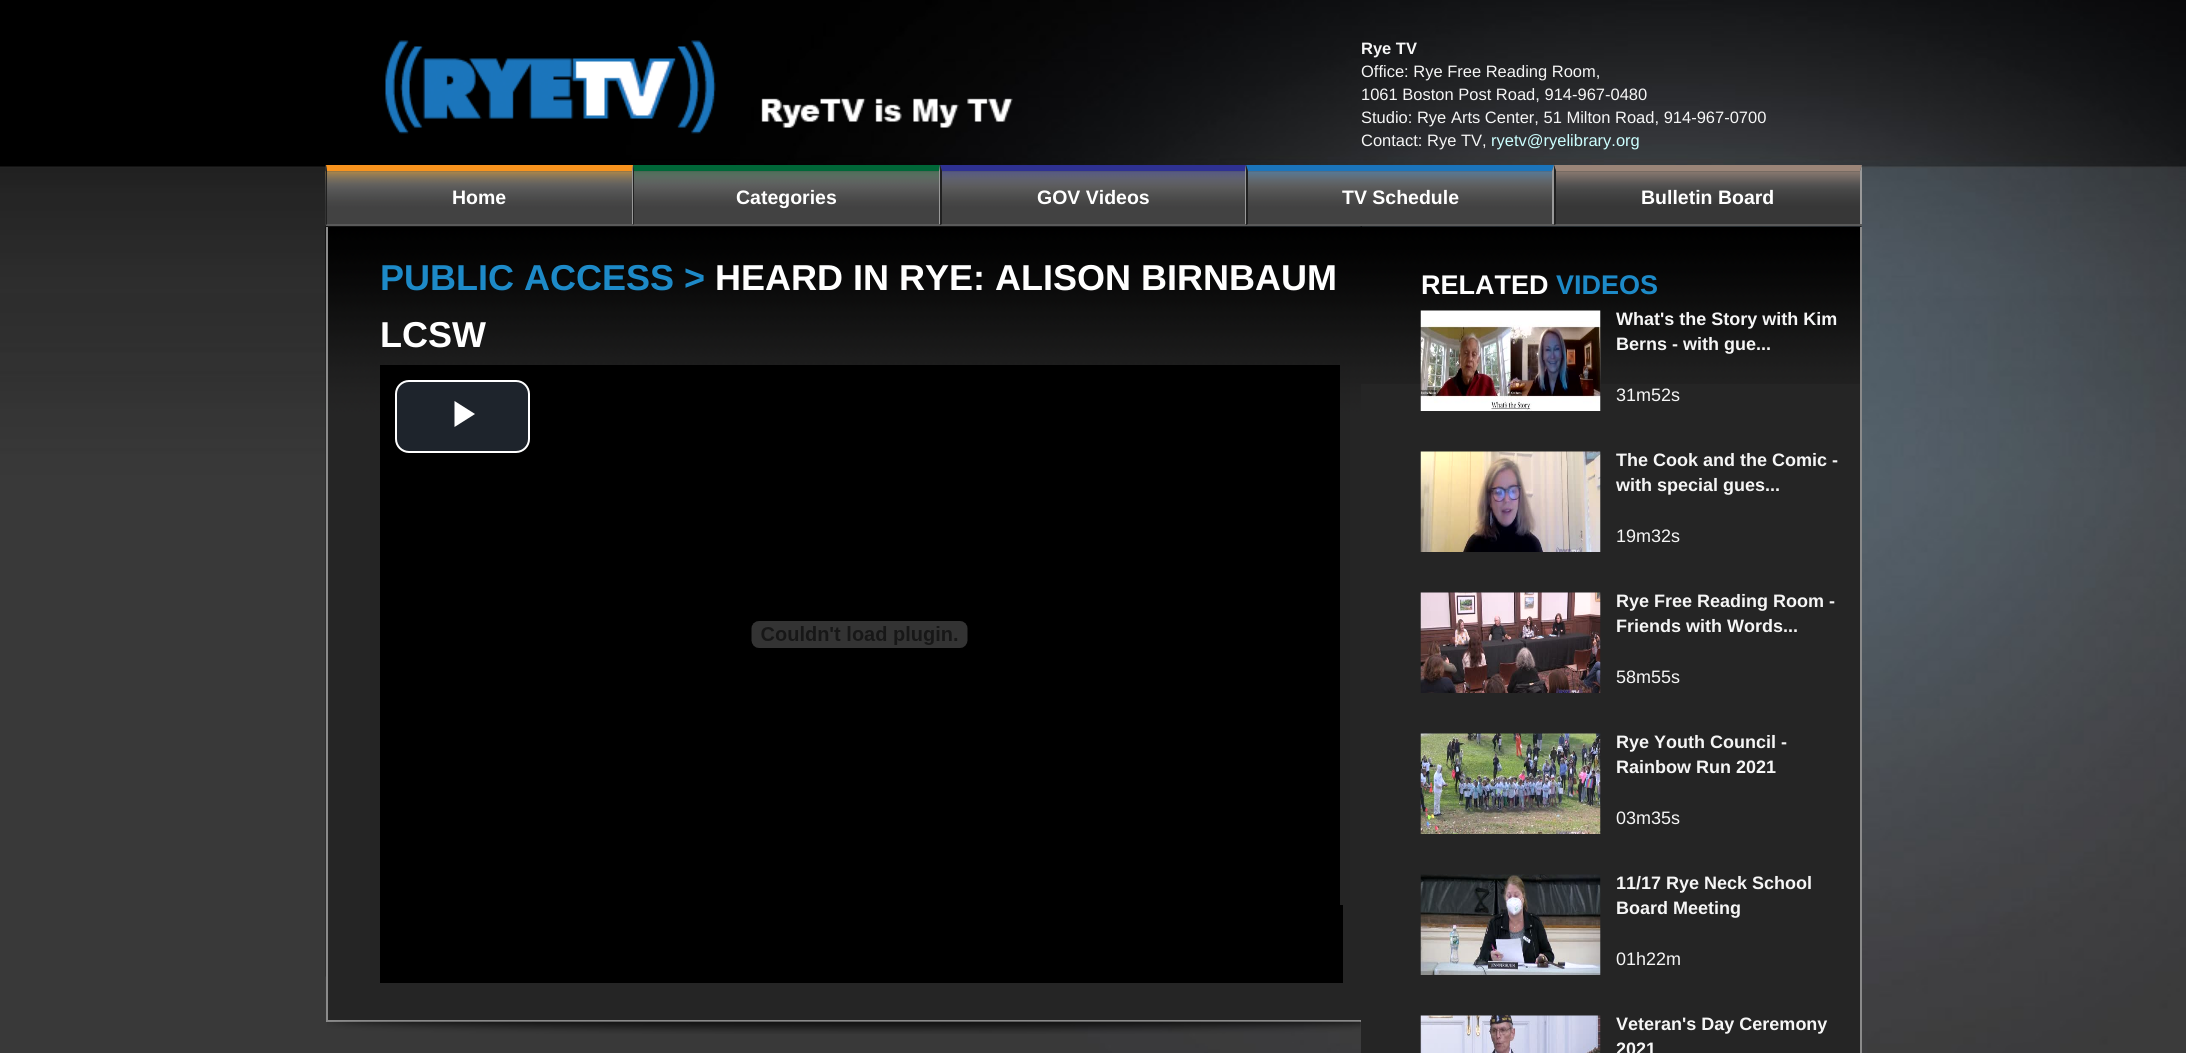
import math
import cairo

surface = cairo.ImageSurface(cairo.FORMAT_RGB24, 2186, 1053)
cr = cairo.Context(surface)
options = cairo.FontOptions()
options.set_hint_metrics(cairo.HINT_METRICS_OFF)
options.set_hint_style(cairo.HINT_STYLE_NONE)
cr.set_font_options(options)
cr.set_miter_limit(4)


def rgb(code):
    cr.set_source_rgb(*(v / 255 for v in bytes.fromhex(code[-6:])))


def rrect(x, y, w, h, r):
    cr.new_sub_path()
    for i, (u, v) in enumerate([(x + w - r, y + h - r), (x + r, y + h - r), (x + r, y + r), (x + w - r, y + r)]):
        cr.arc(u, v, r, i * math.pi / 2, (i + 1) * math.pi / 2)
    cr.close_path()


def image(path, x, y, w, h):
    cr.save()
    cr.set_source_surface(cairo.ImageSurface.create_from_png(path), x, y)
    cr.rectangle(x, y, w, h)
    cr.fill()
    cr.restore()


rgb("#ffffff")
cr.paint()
image("img/1.png", 0, 0, 2186, 1053)
image("img/2.png", 385, 40, 628, 94)
image("img/3.png", 325, 165, 308, 60)
rgb("#f8931e")
cr.new_path()
cr.move_to(326, 165)
cr.line_to(633, 165)
cr.line_to(632, 171)
cr.line_to(327, 171)
cr.close_path()
cr.fill()
rgb("#999999")
cr.new_path()
cr.move_to(633, 165)
cr.line_to(633, 225)
cr.line_to(632, 224)
cr.line_to(632, 171)
cr.close_path()
cr.fill()
rgb("#5a5a5a")
cr.rectangle(326, 224, 307, 2)
cr.fill()
rgb("#212121")
cr.new_path()
cr.move_to(326, 225)
cr.line_to(326, 165)
cr.line_to(327, 171)
cr.line_to(327, 224)
cr.close_path()
cr.fill()
image("img/4.png", 633, 165, 308, 59)
rgb("#006738")
cr.new_path()
cr.move_to(633, 165)
cr.line_to(940, 165)
cr.line_to(939, 171)
cr.line_to(634, 171)
cr.close_path()
cr.fill()
rgb("#999999")
cr.new_path()
cr.move_to(940, 165)
cr.line_to(940, 225)
cr.line_to(939, 224)
cr.line_to(939, 171)
cr.close_path()
cr.fill()
rgb("#5a5a5a")
cr.rectangle(633, 224, 308, 2)
cr.fill()
rgb("#212121")
cr.new_path()
cr.move_to(633, 225)
cr.line_to(633, 165)
cr.line_to(634, 171)
cr.line_to(634, 224)
cr.close_path()
cr.fill()
image("img/5.png", 940, 165, 307, 60)
rgb("#2e3192")
cr.new_path()
cr.move_to(940, 165)
cr.line_to(1246, 165)
cr.line_to(1245, 171)
cr.line_to(942, 171)
cr.close_path()
cr.fill()
rgb("#999999")
cr.new_path()
cr.move_to(1246, 165)
cr.line_to(1246, 225)
cr.line_to(1245, 224)
cr.line_to(1245, 171)
cr.close_path()
cr.fill()
rgb("#5a5a5a")
cr.rectangle(941, 224, 306, 2)
cr.fill()
rgb("#212121")
cr.new_path()
cr.move_to(940, 225)
cr.line_to(940, 165)
cr.line_to(942, 171)
cr.line_to(942, 224)
cr.close_path()
cr.fill()
image("img/6.png", 1246, 165, 308, 60)
rgb("#1b75bc")
cr.new_path()
cr.move_to(1246, 165)
cr.line_to(1554, 165)
cr.line_to(1552, 171)
cr.line_to(1248, 171)
cr.close_path()
cr.fill()
rgb("#999999")
cr.new_path()
cr.move_to(1554, 165)
cr.line_to(1554, 225)
cr.line_to(1552, 224)
cr.line_to(1552, 171)
cr.close_path()
cr.fill()
rgb("#5a5a5a")
cr.rectangle(1247, 224, 307, 2)
cr.fill()
rgb("#212121")
cr.new_path()
cr.move_to(1246, 225)
cr.line_to(1246, 165)
cr.line_to(1248, 171)
cr.line_to(1248, 224)
cr.close_path()
cr.fill()
image("img/7.png", 1554, 165, 308, 59)
rgb("#9b8578")
cr.new_path()
cr.move_to(1554, 165)
cr.line_to(1862, 165)
cr.line_to(1860, 171)
cr.line_to(1556, 171)
cr.close_path()
cr.fill()
rgb("#999999")
cr.new_path()
cr.move_to(1862, 165)
cr.line_to(1862, 225)
cr.line_to(1860, 224)
cr.line_to(1860, 171)
cr.close_path()
cr.fill()
rgb("#5a5a5a")
cr.rectangle(1554, 224, 308, 2)
cr.fill()
rgb("#212121")
cr.new_path()
cr.move_to(1554, 225)
cr.line_to(1554, 165)
cr.line_to(1556, 171)
cr.line_to(1556, 224)
cr.close_path()
cr.fill()
rgb("#252525")
cr.rectangle(328, 976, 1033, 44)
cr.fill()
image("img/8.png", 325, 226, 1037, 751)
for x, y, w, h, color in [
    (326, 1020, 1036, 2, "#8a8a8a"),
    (326, 227, 2, 795, "#8a8a8a"),
    (380, 365, 960, 540, "#000000"),
]:
    rgb(color)
    cr.rectangle(x, y, w, h)
    cr.fill()
rgb("#1e242c")
rrect(396, 381, 133, 71, 13)
cr.fill_preserve()
rgb("#ffffff")
cr.stroke()
cr.new_path()
cr.move_to(454.5, 401)
cr.line_to(454.5, 427)
cr.line_to(475, 414)
cr.close_path()
cr.fill()
image("img/9.png", 751, 621, 217, 27)
rgb("#000000")
cr.rectangle(380, 905, 963, 78)
cr.fill()
image("img/10.png", 327, 1021, 1034, 13)
rgb("#252525")
cr.rectangle(1361, 384, 499, 669)
cr.fill()
image("img/11.png", 1360, 226, 502, 158)
rgb("#8a8a8a")
cr.rectangle(1860, 227, 2, 826)
cr.fill()
image("img/12.png", 1420, 310, 181, 101)
image("img/13.png", 1420, 451, 181, 101)
image("img/14.png", 1420, 592, 181, 101)
image("img/15.png", 1420, 733, 181, 101)
image("img/16.png", 1420, 874, 181, 101)
image("img/17.png", 1420, 1015, 181, 38)
cr.select_font_face("Liberation Sans", cairo.FONT_SLANT_NORMAL, cairo.FONT_WEIGHT_BOLD)
cr.set_font_size(16.5)
rgb("#f6f6f6")
cr.move_to(1361, 54)
cr.show_text("Rye TV")
cr.select_font_face("Liberation Sans")
for x, y, s in [
    (1361, 77, "Office: Rye Free Reading Room,"),
    (1361, 100, "1061 Boston Post Road, 914-967-0480"),
    (1361, 123, "Studio: Rye Arts Center, 51 Milton Road, 914-967-0700"),
    (1361, 146, "Contact: Rye TV,"),
]:
    cr.move_to(x, y)
    cr.show_text(s)
rgb("#ccffff")
cr.move_to(1491, 146)
cr.show_text("ryetv@ryelibrary.org")
cr.select_font_face("Liberation Sans", cairo.FONT_SLANT_NORMAL, cairo.FONT_WEIGHT_BOLD)
cr.set_font_size(19.5)
rgb("#ffffff")
for x, y, s in [
    (452, 204, "Home"),
    (736, 204, "Categories"),
    (1037, 204, "GOV Videos"),
    (1342, 204, "TV Schedule"),
    (1641, 204, "Bulletin Board"),
]:
    cr.move_to(x, y)
    cr.show_text(s)
cr.set_font_size(36)
rgb("#1d8ac8")
cr.move_to(380, 290)
cr.show_text("PUBLIC ACCESS >")
rgb("#ffffff")
cr.move_to(715, 290)
cr.show_text("HEARD IN RYE: ALISON BIRNBAUM")
cr.move_to(380, 347)
cr.show_text("LCSW")
cr.set_font_size(27)
cr.move_to(1421, 294)
cr.show_text("RELATED")
rgb("#1d8ac8")
cr.move_to(1556, 294)
cr.show_text("VIDEOS")
cr.set_font_size(18)
rgb("#f6f6f6")
cr.move_to(1616, 325)
cr.show_text("What's the Story with Kim")
cr.move_to(1616, 350)
cr.show_text("Berns - with gue...")
cr.select_font_face("Liberation Sans")
cr.move_to(1616, 401)
cr.show_text("31m52s")
cr.select_font_face("Liberation Sans", cairo.FONT_SLANT_NORMAL, cairo.FONT_WEIGHT_BOLD)
cr.move_to(1616, 466)
cr.show_text("The Cook and the Comic -")
cr.move_to(1616, 491)
cr.show_text("with special gues...")
cr.select_font_face("Liberation Sans")
cr.move_to(1616, 542)
cr.show_text("19m32s")
cr.select_font_face("Liberation Sans", cairo.FONT_SLANT_NORMAL, cairo.FONT_WEIGHT_BOLD)
cr.move_to(1616, 607)
cr.show_text("Rye Free Reading Room -")
cr.move_to(1616, 632)
cr.show_text("Friends with Words...")
cr.select_font_face("Liberation Sans")
cr.move_to(1616, 683)
cr.show_text("58m55s")
cr.select_font_face("Liberation Sans", cairo.FONT_SLANT_NORMAL, cairo.FONT_WEIGHT_BOLD)
cr.move_to(1616, 748)
cr.show_text("Rye Youth Council -")
cr.move_to(1616, 773)
cr.show_text("Rainbow Run 2021")
cr.select_font_face("Liberation Sans")
cr.move_to(1616, 824)
cr.show_text("03m35s")
cr.select_font_face("Liberation Sans", cairo.FONT_SLANT_NORMAL, cairo.FONT_WEIGHT_BOLD)
cr.move_to(1616, 889)
cr.show_text("11/17 Rye Neck School")
cr.move_to(1616, 914)
cr.show_text("Board Meeting")
cr.select_font_face("Liberation Sans")
cr.move_to(1616, 965)
cr.show_text("01h22m")
cr.select_font_face("Liberation Sans", cairo.FONT_SLANT_NORMAL, cairo.FONT_WEIGHT_BOLD)
cr.move_to(1616, 1030)
cr.show_text("Veteran's Day Ceremony")
cr.move_to(1616, 1055)
cr.show_text("2021")
surface.write_to_png("page.png")
